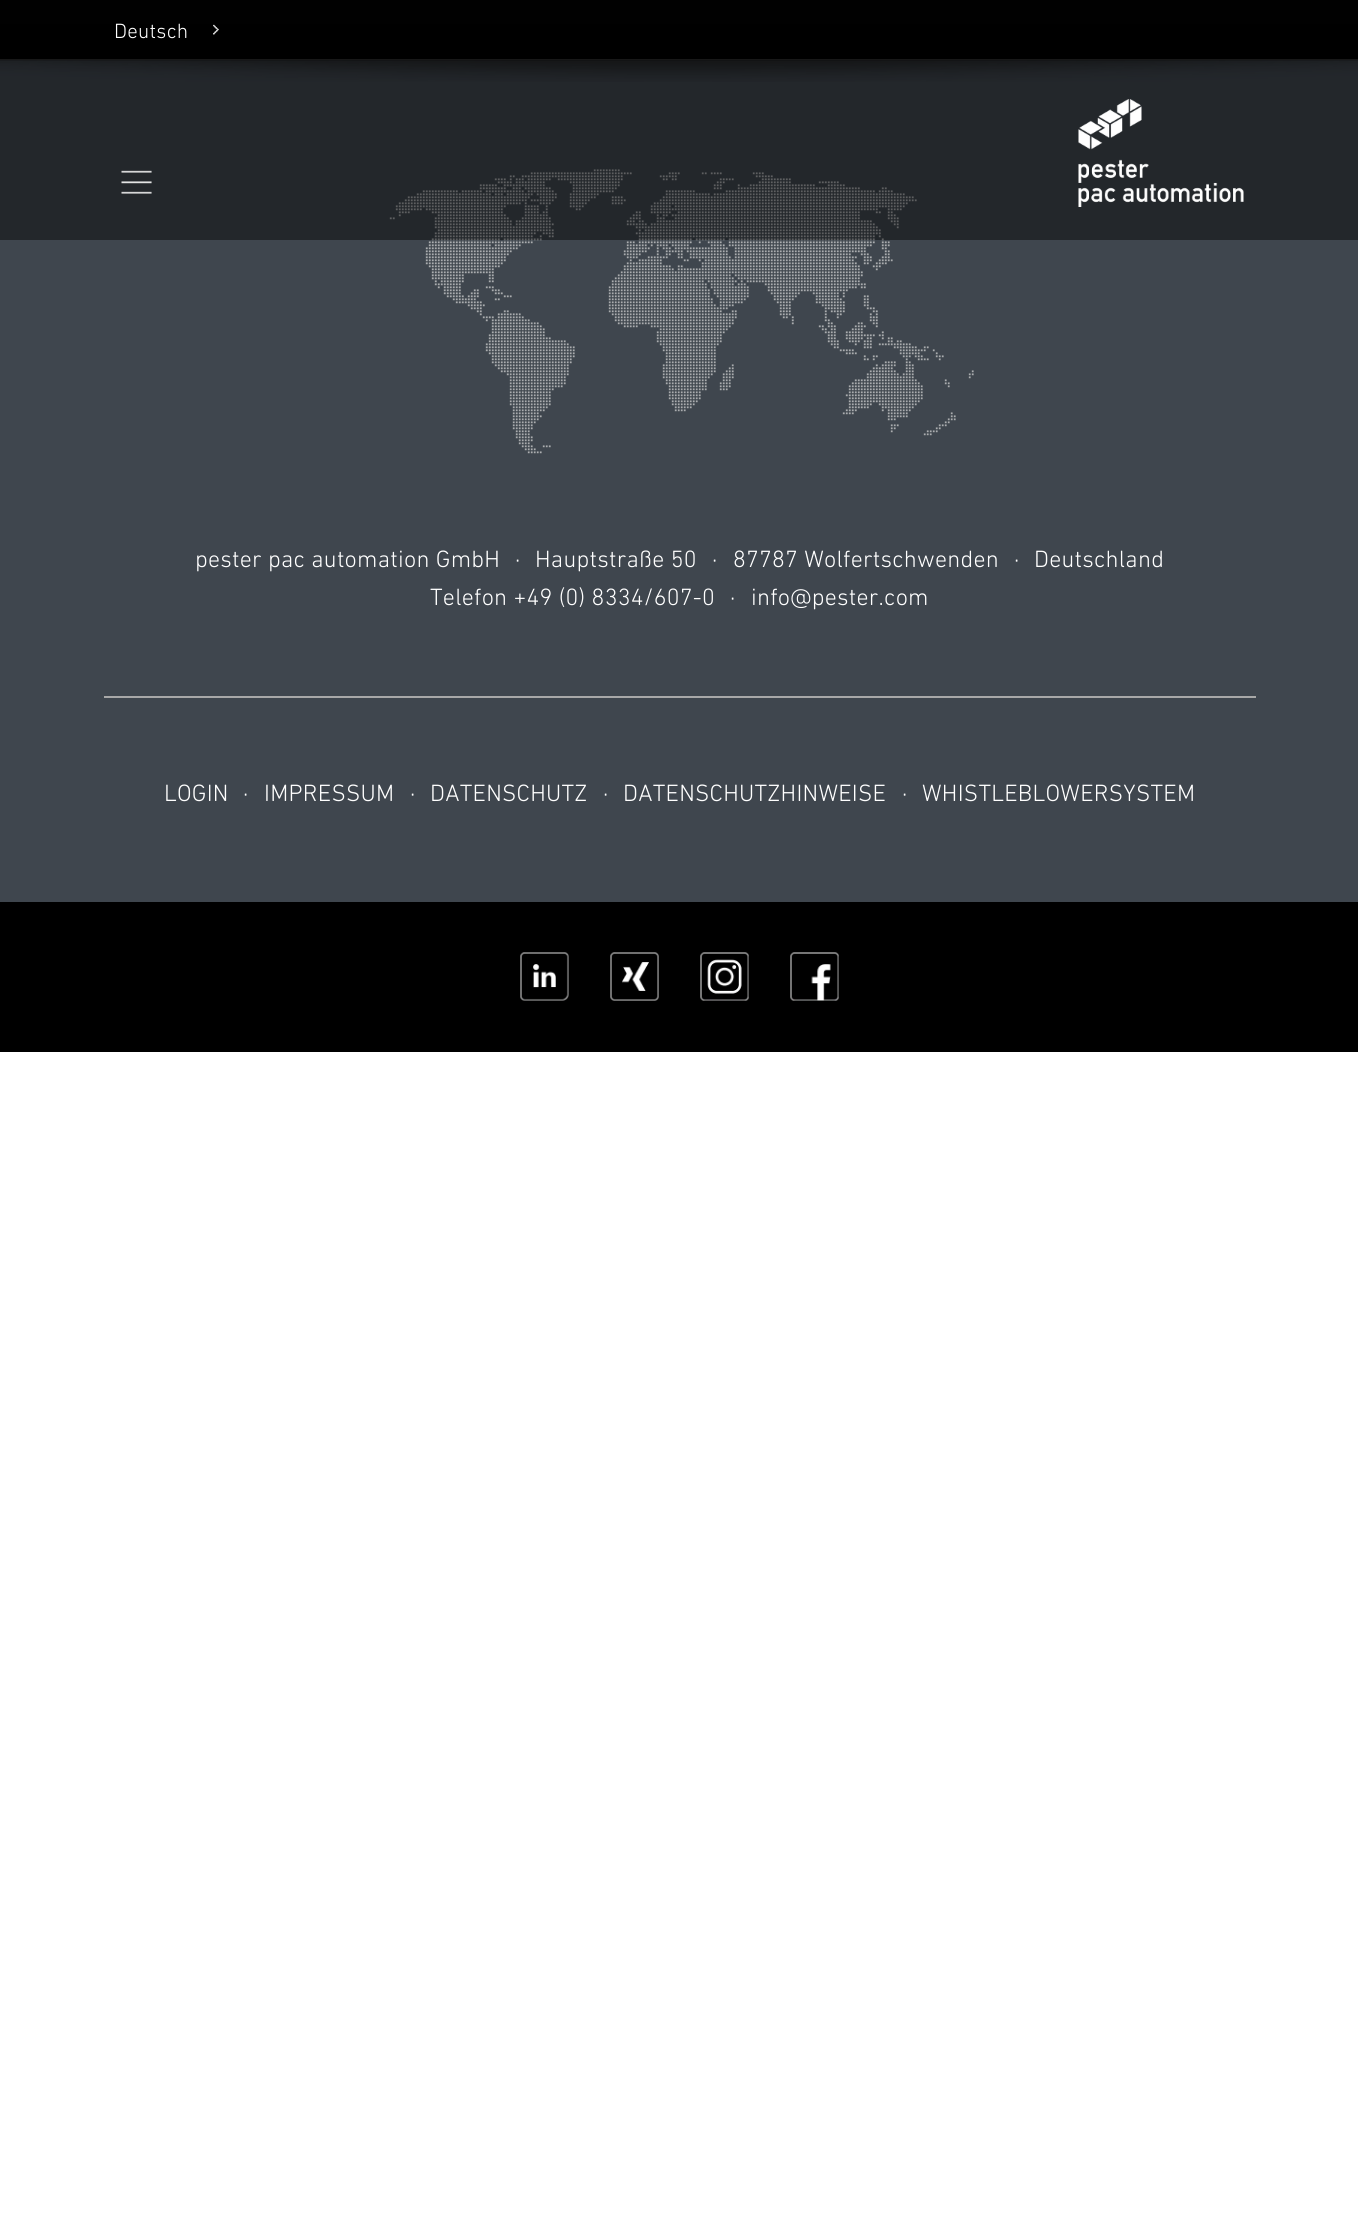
import math
import cairo

surface = cairo.ImageSurface(cairo.FORMAT_RGB24, 1358, 2220)
cr = cairo.Context(surface)
options = cairo.FontOptions()
options.set_hint_metrics(cairo.HINT_METRICS_OFF)
options.set_hint_style(cairo.HINT_STYLE_NONE)
cr.set_font_options(options)
cr.set_miter_limit(4)


def rgb(code):
    cr.set_source_rgb(*(v / 255 for v in bytes.fromhex(code[-6:])))


def tracked(x, y, s, letter, word):
    cr.move_to(x, y)
    for ch in s:
        cr.show_text(ch)
        cr.rel_move_to(letter + word * (ch == ' '), 0)


def image(path, x, y, w, h):
    cr.save()
    cr.set_source_surface(cairo.ImageSurface.create_from_png(path), x, y)
    cr.rectangle(x, y, w, h)
    cr.fill()
    cr.restore()


rgb("#ffffff")
cr.paint()
rgb("#3f464e")
cr.rectangle(0, 60, 1358, 842)
cr.fill()
image("img/5.png", 0, 60, 1358, 22)
image("img/6.png", 389, 169, 585, 285)
image("img/1.png", 0, 0, 1358, 240)
image("img/2.png", 213, 24, 6, 11)
image("img/3.png", 121, 170, 31, 24)
image("img/4.png", 1078, 99, 166, 108)
rgb("#a8a8a8")
cr.rectangle(104, 696, 1152, 2)
cr.fill()
rgb("#000000")
cr.rectangle(0, 902, 1358, 150)
cr.fill()
image("img/7.png", 520, 952, 49, 49)
image("img/8.png", 610, 952, 49, 49)
image("img/9.png", 700, 952, 49, 49)
image("img/10.png", 790, 952, 49, 49)
cr.select_font_face("DIN Next Light")
cr.set_font_size(21)
rgb("#ffffff")
tracked(114, 38, "Deutsch", 0.25, 0)
cr.set_font_size(24)
for x, y, s in [
    (195, 567, "pester pac automation GmbH"),
    (515, 567, "·"),
    (535, 567, "Hauptstraße 50"),
    (712, 567, "·"),
    (733, 567, "87787 Wolfertschwenden"),
    (1014, 567, "·"),
    (1034, 567, "Deutschland"),
    (430, 605, "Telefon +49 (0) 8334/607-0"),
    (730, 605, "·"),
    (751, 605, "info@pester.com"),
    (164, 801, "LOGIN"),
    (243, 801, "·"),
    (264, 801, "IMPRESSUM"),
    (410, 801, "·"),
    (430, 801, "DATENSCHUTZ"),
    (603, 801, "·"),
    (623, 801, "DATENSCHUTZHINWEISE"),
    (902, 801, "·"),
    (922, 801, "WHISTLEBLOWERSYSTEM"),
]:
    tracked(x, y, s, 0.25, 0)
surface.write_to_png("page.png")
